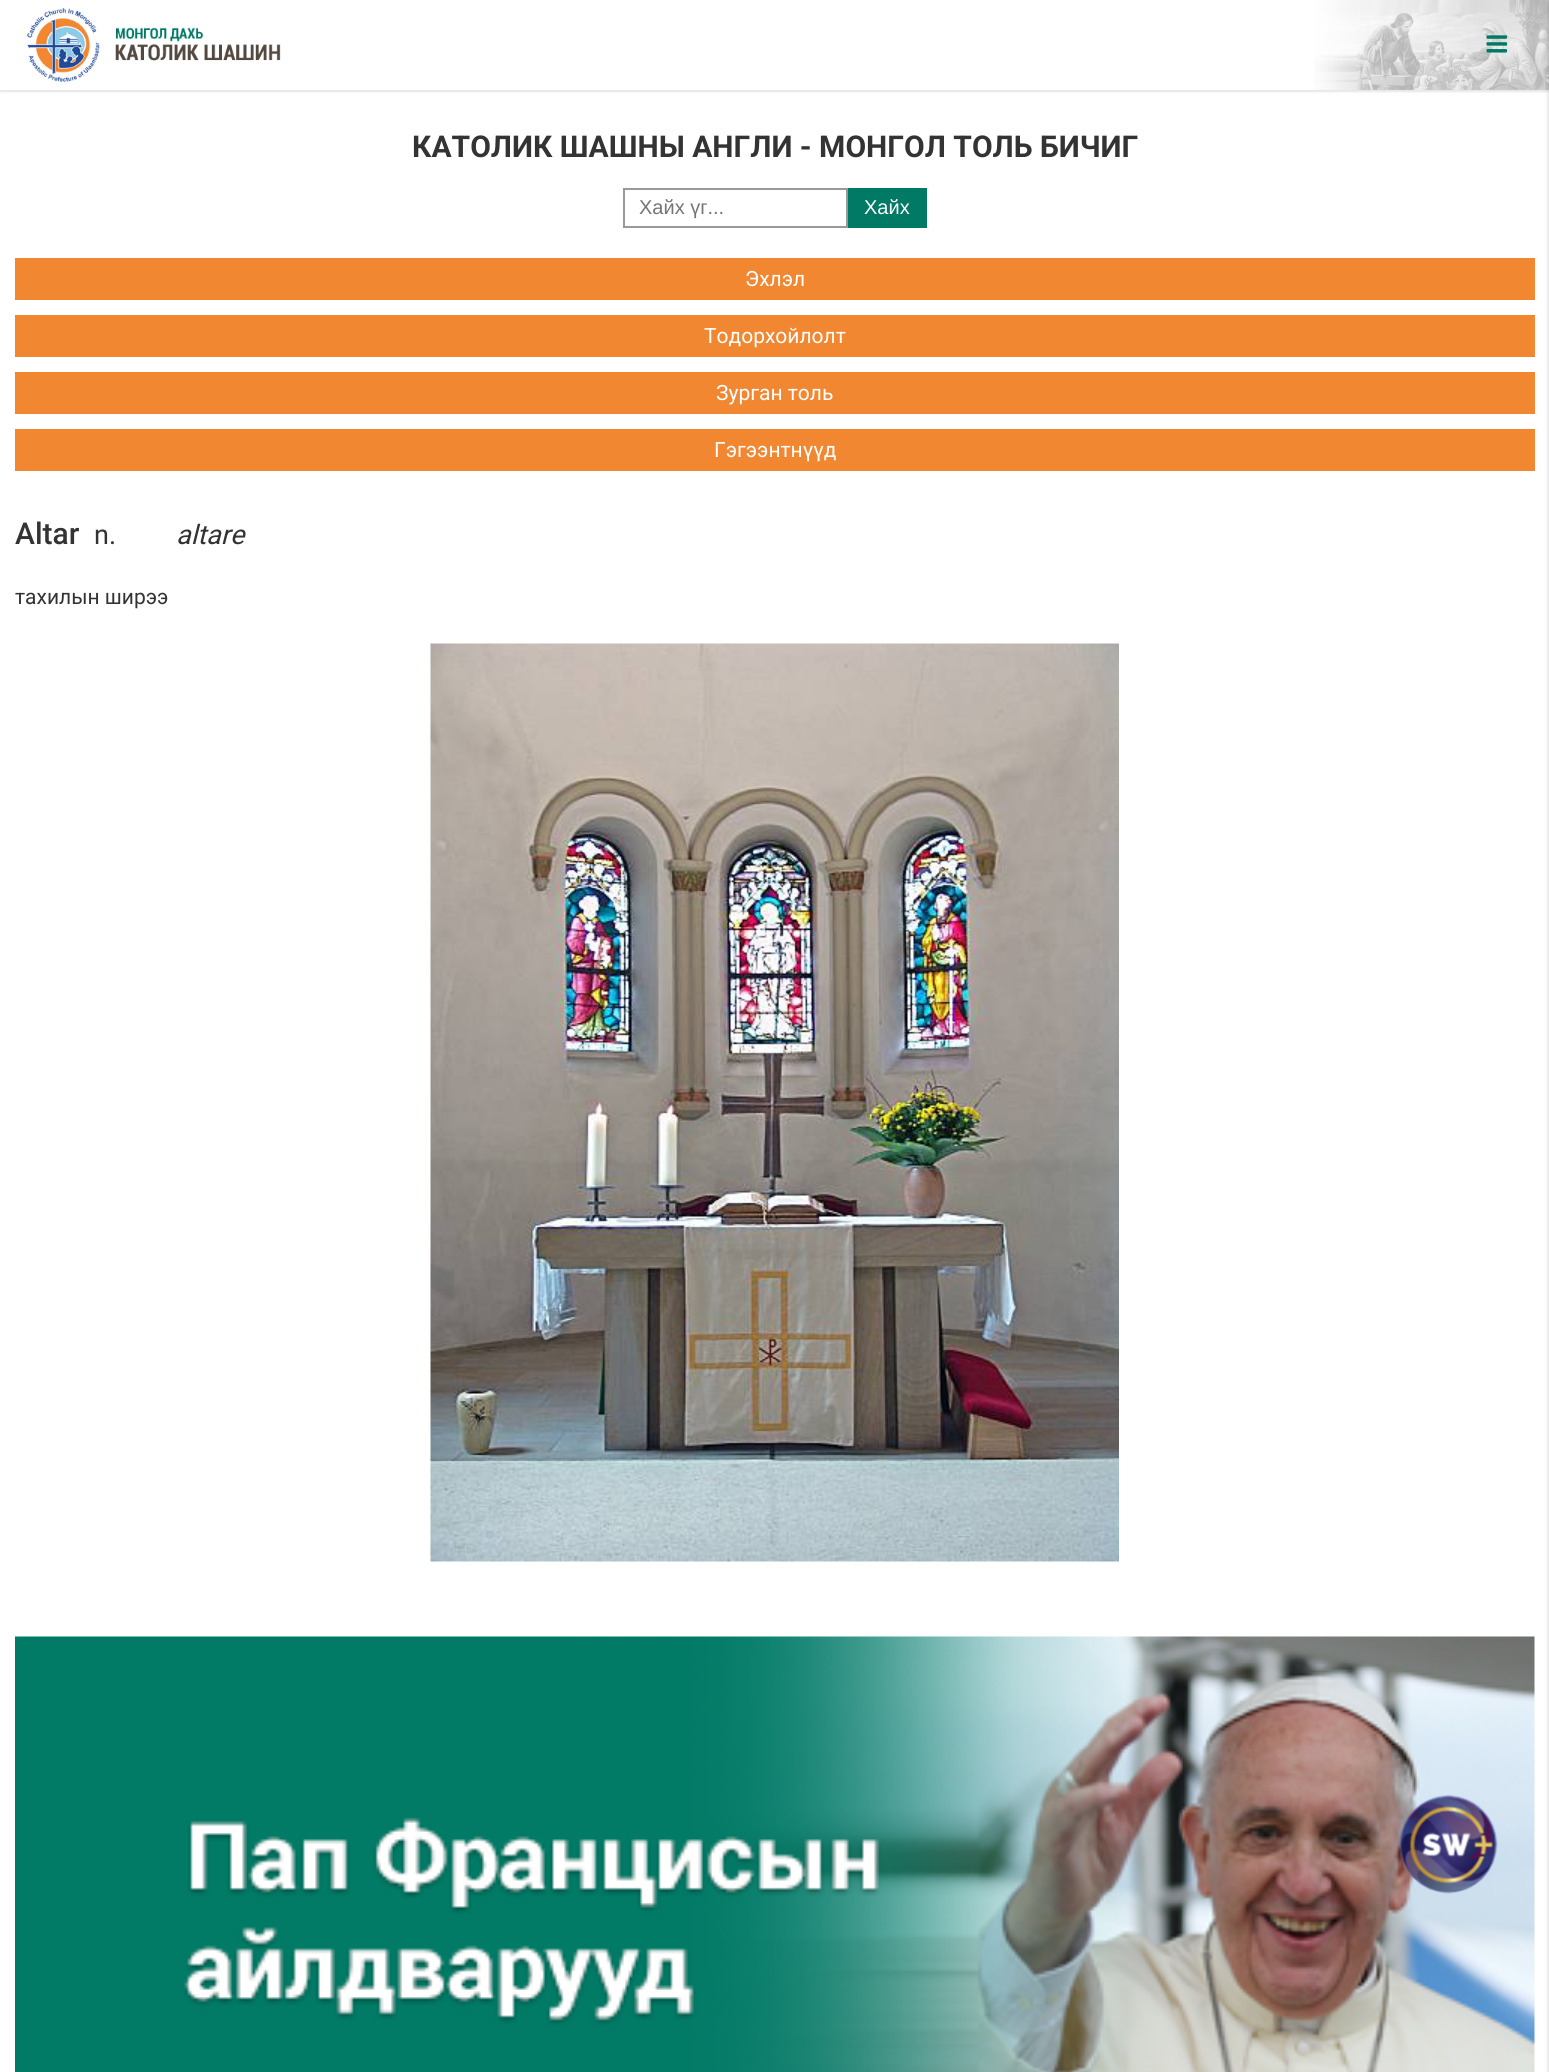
import math
import cairo

surface = cairo.ImageSurface(cairo.FORMAT_RGB24, 1549, 2072)
cr = cairo.Context(surface)
options = cairo.FontOptions()
options.set_hint_metrics(cairo.HINT_METRICS_OFF)
options.set_hint_style(cairo.HINT_STYLE_NONE)
cr.set_font_options(options)
cr.set_miter_limit(4)


def rgb(code):
    cr.set_source_rgb(*(v / 255 for v in bytes.fromhex(code[-6:])))


def rrect(x, y, w, h, r):
    cr.new_sub_path()
    for i, (u, v) in enumerate([(x + w - r, y + h - r), (x + r, y + h - r), (x + r, y + r), (x + w - r, y + r)]):
        cr.arc(u, v, r, i * math.pi / 2, (i + 1) * math.pi / 2)
    cr.close_path()


def soft_shadow(x, y, w, h, r, blur, alpha):
    cr.push_group_with_content(cairo.CONTENT_ALPHA)
    cr.set_operator(cairo.OPERATOR_SOURCE)
    for i in range(15, -16, -2):
        e = blur * i / 6
        if min(w, h) + 2 * e > 0:
            cr.set_source_rgba(0, 0, 0, alpha * math.erfc((i - 1) / 8.5) / 2)
            rrect(x - e, y - e, w + 2 * e, h + 2 * e, max(0, min(r + e + blur * .6, min(w, h) / 2 + e)))
            cr.fill()
    cr.mask(cr.pop_group())


def image(path, x, y, w, h):
    cr.save()
    cr.set_source_surface(cairo.ImageSurface.create_from_png(path), x, y)
    cr.rectangle(x, y, w, h)
    cr.fill()
    cr.restore()


rgb("#ffffff")
cr.paint()
cr.save()
cr.rectangle(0, 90, 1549, 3)
cr.clip()
rgb("#000000")
soft_shadow(0, 2, 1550, 90, 0, 1, 0.1)
cr.restore()
image("img/1.png", 1314, 0, 235, 90)
image("img/2.png", 27, 8, 254, 75)
image("img/3.png", 1486, 35, 22, 18)
cr.rectangle(624, 189, 223, 38)
rgb("#999999")
cr.stroke()
for x, y, w, h, color in [
    (848, 188, 79, 40, "#007965"),
    (15, 258, 1520, 42, "#f28732"),
    (15, 315, 1520, 42, "#f28732"),
    (15, 372, 1520, 42, "#f28732"),
    (15, 429, 1520, 42, "#f28732"),
]:
    rgb(color)
    cr.rectangle(x, y, w, h)
    cr.fill()
image("img/4.png", 430, 643, 689, 919)
image("img/5.png", 15, 1636, 1520, 436)
rgb("#000000")
soft_shadow(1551, 3, 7, 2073, 0, 3, 0.4)
image("img/6.png", 1399, 1795, 99, 99)
cr.select_font_face("Roboto", cairo.FONT_SLANT_NORMAL, cairo.FONT_WEIGHT_BOLD)
cr.set_font_size(30)
rgb("#333333")
cr.move_to(412, 157)
cr.show_text("КАТОЛИК ШАШНЫ АНГЛИ - МОНГОЛ ТОЛЬ БИЧИГ")
cr.select_font_face("Liberation Sans")
cr.set_font_size(20)
rgb("#757575")
cr.move_to(639, 214)
cr.show_text("Хайх үг...")
rgb("#ffffff")
cr.move_to(864, 214)
cr.show_text("Хайх")
cr.select_font_face("Roboto")
cr.set_font_size(21)
for x, y, s in [
    (745, 286, "Эхлэл"),
    (704, 343, "Тодорхойлолт"),
    (716, 400, "Зурган толь"),
    (714, 457, "Гэгээнтнүүд"),
]:
    cr.move_to(x, y)
    cr.show_text(s)
cr.select_font_face("Roboto Medium")
cr.set_font_size(30)
rgb("#333333")
cr.move_to(15, 544)
cr.show_text("Altar")
cr.select_font_face("Roboto")
cr.set_font_size(27)
cr.move_to(94, 544)
cr.show_text("n.")
cr.select_font_face("Roboto", cairo.FONT_SLANT_ITALIC)
cr.move_to(176, 544)
cr.show_text("altare")
cr.select_font_face("Roboto")
cr.set_font_size(21)
cr.move_to(15, 604)
cr.show_text("тахилын ширээ")
surface.write_to_png("page.png")
